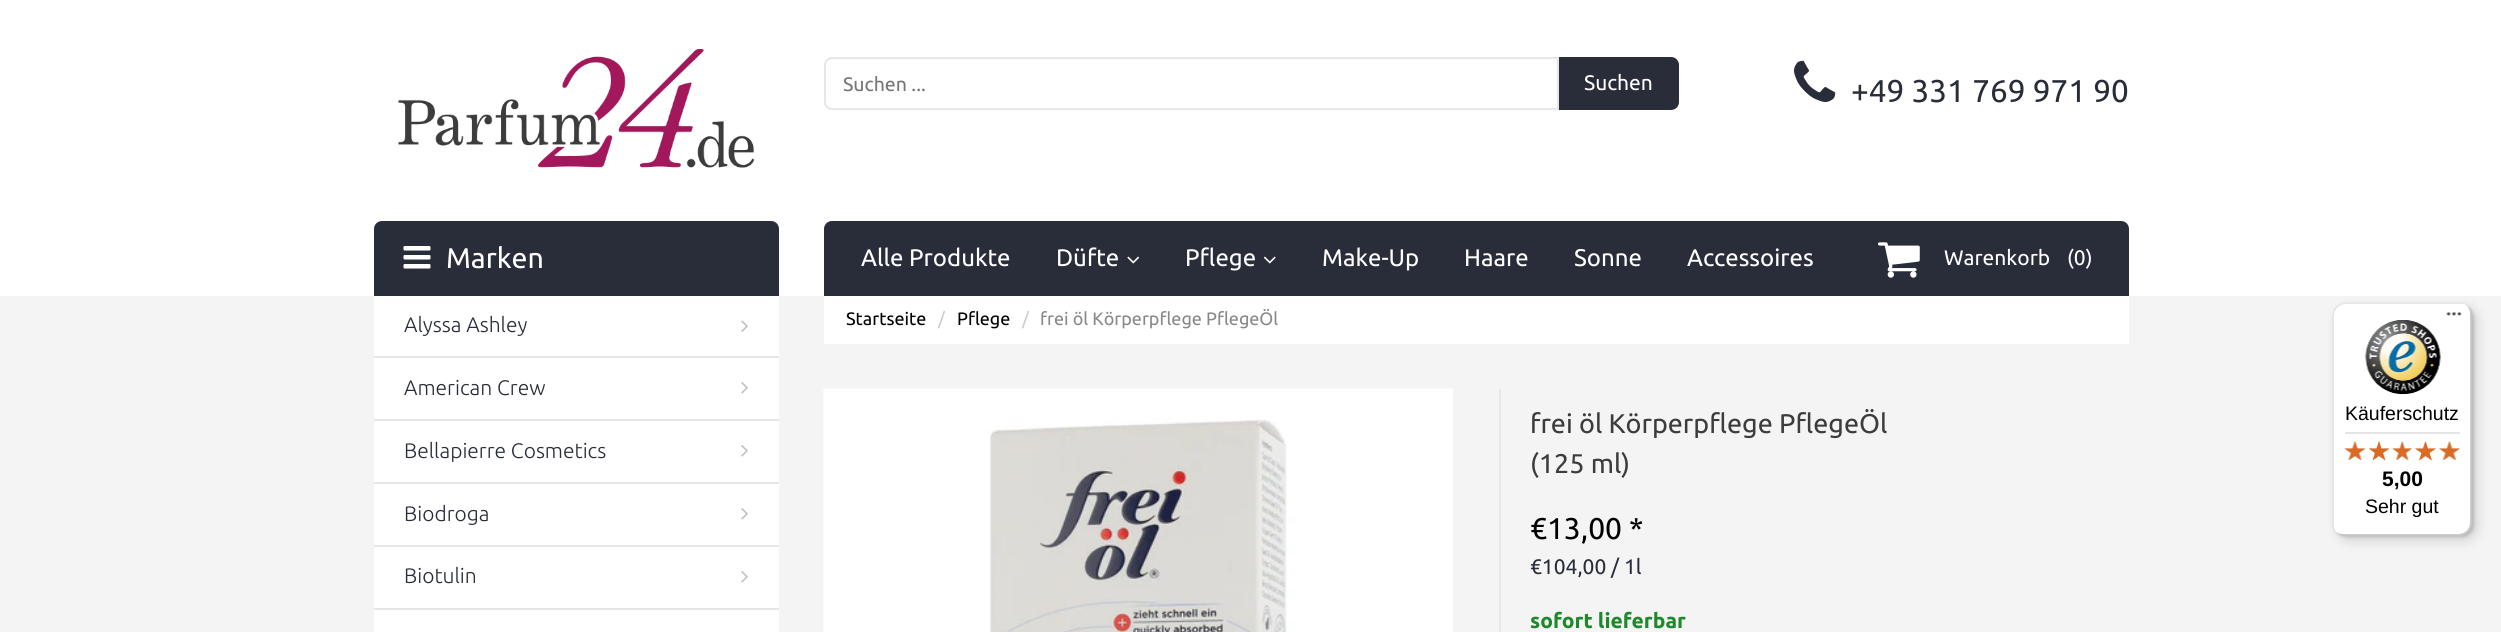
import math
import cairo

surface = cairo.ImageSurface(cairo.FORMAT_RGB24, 2501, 632)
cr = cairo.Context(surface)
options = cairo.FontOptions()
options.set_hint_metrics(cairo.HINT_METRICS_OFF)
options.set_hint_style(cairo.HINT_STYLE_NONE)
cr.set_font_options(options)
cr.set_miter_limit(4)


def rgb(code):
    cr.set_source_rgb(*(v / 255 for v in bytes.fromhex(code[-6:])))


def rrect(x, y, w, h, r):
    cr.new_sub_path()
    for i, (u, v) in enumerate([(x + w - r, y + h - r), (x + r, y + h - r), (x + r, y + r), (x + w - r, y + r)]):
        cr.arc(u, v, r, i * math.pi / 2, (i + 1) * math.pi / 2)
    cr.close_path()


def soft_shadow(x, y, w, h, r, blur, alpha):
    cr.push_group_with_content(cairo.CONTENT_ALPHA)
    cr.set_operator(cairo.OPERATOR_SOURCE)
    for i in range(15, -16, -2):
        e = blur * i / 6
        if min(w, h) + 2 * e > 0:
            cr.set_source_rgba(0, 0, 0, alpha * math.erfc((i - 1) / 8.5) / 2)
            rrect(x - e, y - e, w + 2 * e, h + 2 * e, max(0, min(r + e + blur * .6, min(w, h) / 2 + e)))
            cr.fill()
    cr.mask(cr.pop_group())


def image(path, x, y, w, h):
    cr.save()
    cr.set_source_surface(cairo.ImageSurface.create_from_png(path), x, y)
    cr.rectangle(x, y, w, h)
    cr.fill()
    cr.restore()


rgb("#f4f4f4")
cr.paint()
rgb("#ffffff")
cr.rectangle(0, 0, 2501, 296)
cr.fill()
image("img/1.png", 398, 49, 357, 119)
cr.new_path()
cr.move_to(832, 58)
cr.line_to(1558, 58)
cr.line_to(1558, 109)
cr.line_to(832, 109)
cr.curve_to(828, 109, 825, 106, 825, 102)
cr.line_to(825, 65)
cr.curve_to(825, 61, 828, 58, 832, 58)
cr.close_path()
rgb("#e7e7e7")
cr.stroke()
rgb("#292d39")
cr.new_path()
cr.move_to(1559, 57)
cr.line_to(1671, 57)
cr.curve_to(1675.5, 57, 1679, 60.5, 1679, 65)
cr.line_to(1679, 102)
cr.curve_to(1679, 106.5, 1675.5, 110, 1671, 110)
cr.line_to(1559, 110)
cr.close_path()
cr.fill()
image("img/2.png", 1794, 60, 42, 42)
cr.new_path()
cr.move_to(832, 221)
cr.line_to(2114, 221)
cr.curve_to(2122.5, 221, 2129, 227.5, 2129, 236)
cr.line_to(2129, 296)
cr.line_to(824, 296)
cr.line_to(824, 229)
cr.curve_to(824, 224.5, 827.5, 221, 832, 221)
cr.close_path()
cr.fill()
image("img/3.png", 1127, 256, 13, 8)
image("img/4.png", 1263, 256, 13, 8)
cr.new_path()
cr.move_to(1848, 221)
cr.line_to(2121, 221)
cr.curve_to(2125.5, 221, 2129, 224.5, 2129, 229)
cr.line_to(2129, 296)
cr.line_to(1848, 296)
cr.close_path()
cr.fill()
image("img/5.png", 1878, 242, 42, 36)
cr.new_path()
cr.move_to(382, 221)
cr.line_to(771, 221)
cr.curve_to(775.5, 221, 779, 224.5, 779, 229)
cr.line_to(779, 296)
cr.line_to(374, 296)
cr.line_to(374, 229)
cr.curve_to(374, 224.5, 377.5, 221, 382, 221)
cr.close_path()
cr.fill()
image("img/6.png", 403, 246, 28, 23)
rgb("#ffffff")
cr.rectangle(374, 296, 405, 60)
cr.fill()
image("img/7.png", 741, 320, 7, 12)
cr.rectangle(374, 358, 405, 61)
cr.fill()
rgb("#e6e6e6")
cr.rectangle(374, 356, 405, 2)
cr.fill()
image("img/8.png", 741, 382, 7, 12)
rgb("#ffffff")
cr.rectangle(374, 421, 405, 61)
cr.fill()
rgb("#e6e6e6")
cr.rectangle(374, 419, 405, 2)
cr.fill()
image("img/8.png", 741, 445, 7, 12)
rgb("#ffffff")
cr.rectangle(374, 484, 405, 61)
cr.fill()
rgb("#e6e6e6")
cr.rectangle(374, 482, 405, 2)
cr.fill()
image("img/8.png", 741, 508, 7, 12)
rgb("#ffffff")
cr.rectangle(374, 547, 405, 61)
cr.fill()
rgb("#e6e6e6")
cr.rectangle(374, 545, 405, 2)
cr.fill()
image("img/8.png", 741, 571, 7, 12)
for x, y, w, h, color in [
    (374, 610, 405, 22, "#ffffff"),
    (374, 608, 405, 2, "#e6e6e6"),
    (824, 296, 1305, 48, "#ffffff"),
    (1453, 389, 1, 243, "#e8e8e8"),
]:
    rgb(color)
    cr.rectangle(x, y, w, h)
    cr.fill()
image("img/9.png", 823, 388, 631, 244)
rgb("#e7e7e7")
cr.rectangle(1499, 389, 2, 243)
cr.fill()
rgb("#000000")
soft_shadow(2337, 308, 140, 232, 12, 6, 0.15)
soft_shadow(2334, 305, 140, 232, 12, 1.5, 0.15)
rgb("#ffffff")
rrect(2333, 303, 139, 233, 12)
cr.fill()
cr.set_source_rgba(0, 0, 0, 0.1)
cr.new_path()
cr.move_to(2346, 304)
cr.line_to(2462, 304)
cr.curve_to(2464, 304, 2466, 305, 2467, 306)
cr.curve_to(2465, 304, 2463, 303, 2460, 303)
cr.line_to(2345, 303)
cr.curve_to(2338, 303, 2333, 308, 2333, 315)
cr.line_to(2333, 524)
cr.curve_to(2333, 527, 2334, 530, 2336, 532)
cr.curve_to(2335, 530, 2334, 528, 2334, 525)
cr.line_to(2334, 316)
cr.curve_to(2334, 310, 2339, 304, 2346, 304)
cr.close_path()
cr.fill()
cr.set_source_rgba(0, 0, 0, 0.2)
cr.new_path()
cr.move_to(2336, 532)
cr.curve_to(2338, 534, 2341, 536, 2345, 536)
cr.line_to(2460, 536)
cr.curve_to(2467, 536, 2472, 531, 2472, 524)
cr.line_to(2472, 315)
cr.curve_to(2472, 310, 2469, 306, 2465, 304)
cr.curve_to(2468, 306, 2470, 310, 2470, 314)
cr.line_to(2470, 522)
cr.curve_to(2470, 529, 2465, 534, 2458, 534)
cr.line_to(2343, 534)
cr.curve_to(2340, 534, 2338, 533, 2336, 532)
cr.close_path()
cr.fill()
cr.set_source_rgba(0.196, 0.196, 0.196, 0.2)
cr.new_path()
cr.move_to(2336, 532)
cr.curve_to(2338, 534, 2341, 536, 2345, 536)
cr.line_to(2460, 536)
cr.curve_to(2467, 536, 2472, 531, 2472, 524)
cr.line_to(2472, 315)
cr.curve_to(2472, 312, 2471, 309, 2469, 307)
cr.curve_to(2470, 309, 2471, 311, 2471, 314)
cr.line_to(2471, 523)
cr.curve_to(2471, 529, 2466, 535, 2459, 535)
cr.line_to(2344, 535)
cr.curve_to(2341, 535, 2338, 534, 2336, 532)
cr.close_path()
cr.fill()
cr.set_source_rgba(1, 1, 1, 0.3)
cr.new_path()
cr.move_to(2336, 532)
cr.curve_to(2338, 534, 2341, 536, 2345, 536)
cr.line_to(2460, 536)
cr.curve_to(2467, 536, 2472, 531, 2472, 524)
cr.line_to(2472, 315)
cr.curve_to(2472, 311, 2470, 308, 2468, 306)
cr.curve_to(2470, 308, 2471, 311, 2471, 314)
cr.line_to(2471, 523)
cr.curve_to(2471, 529, 2466, 535, 2459, 535)
cr.line_to(2344, 535)
cr.curve_to(2341, 535, 2338, 534, 2336, 532)
cr.close_path()
cr.fill()
image("img/10.png", 2446, 312, 16, 4)
image("img/11.png", 2365, 320, 76, 75)
rgb("#e5e5e5")
cr.rectangle(2345, 432, 115, 2)
cr.fill()
image("img/12.png", 2344, 441, 22, 19)
image("img/13.png", 2369, 441, 20, 19)
image("img/14.png", 2392, 441, 20, 19)
image("img/15.png", 2415, 441, 21, 19)
image("img/16.png", 2439, 441, 21, 19)
image("img/17.png", 2344, 441, 22, 19)
image("img/18.png", 2369, 441, 20, 20)
image("img/19.png", 2392, 441, 20, 19)
image("img/20.png", 2415, 441, 21, 20)
image("img/21.png", 2439, 441, 21, 19)
cr.select_font_face("Ubuntu")
cr.set_font_size(19.5)
rgb("#757575")
cr.move_to(843, 91)
cr.show_text("Suchen ...")
cr.set_font_size(21)
rgb("#ffffff")
cr.move_to(1584, 90)
cr.show_text("Suchen")
cr.set_font_size(31.5)
rgb("#292d39")
cr.move_to(1851, 102)
cr.show_text("+49 331 769 971 90")
cr.set_font_size(24)
rgb("#ffffff")
for x, y, s in [
    (861, 266, "Alle Produkte"),
    (1056, 266, "Düfte"),
    (1185, 266, "Pflege"),
    (1322, 266, "Make-Up"),
    (1464, 266, "Haare"),
    (1574, 266, "Sonne"),
    (1687, 266, "Accessoires"),
]:
    cr.move_to(x, y)
    cr.show_text(s)
cr.set_font_size(21)
cr.move_to(1944, 265)
cr.show_text("Warenkorb")
cr.move_to(2067, 265)
cr.show_text("(0)")
cr.set_font_size(28.5)
cr.move_to(446, 268)
cr.show_text("Marken")
cr.select_font_face("Ubuntu Light")
cr.set_font_size(21)
rgb("#292d39")
for x, y, s in [
    (404, 332, "Alyssa Ashley"),
    (404, 395, "American Crew"),
    (404, 458, "Bellapierre Cosmetics"),
    (404, 521, "Biodroga"),
    (404, 583, "Biotulin"),
]:
    cr.move_to(x, y)
    cr.show_text(s)
cr.select_font_face("Ubuntu")
cr.set_font_size(18)
rgb("#000000")
cr.move_to(846, 325)
cr.show_text("Startseite")
rgb("#cccccc")
cr.move_to(938, 325)
cr.show_text("/")
rgb("#000000")
cr.move_to(957, 325)
cr.show_text("Pflege")
rgb("#cccccc")
cr.move_to(1022, 325)
cr.show_text("/")
rgb("#888888")
cr.move_to(1040, 325)
cr.show_text("frei öl Körperpflege PflegeÖl")
cr.set_font_size(27)
rgb("#3c3c3c")
cr.move_to(1530, 433)
cr.show_text("frei öl Körperpflege PflegeÖl")
cr.move_to(1530, 473)
cr.show_text("(125 ml)")
cr.set_font_size(30)
rgb("#000000")
cr.move_to(1530, 539)
cr.show_text("€13,00 *")
cr.set_font_size(21)
rgb("#292d39")
cr.move_to(1530, 574)
cr.show_text("€104,00 / 1l")
cr.select_font_face("Ubuntu", cairo.FONT_SLANT_NORMAL, cairo.FONT_WEIGHT_BOLD)
rgb("#1e892a")
cr.move_to(1530, 628)
cr.show_text("sofort lieferbar")
cr.select_font_face("Liberation Sans")
cr.set_font_size(19.5)
rgb("#000000")
cr.move_to(2345, 420)
cr.show_text("Käuferschutz")
cr.select_font_face("Liberation Sans", cairo.FONT_SLANT_NORMAL, cairo.FONT_WEIGHT_BOLD)
cr.set_font_size(21)
cr.move_to(2382, 486)
cr.show_text("5,00")
cr.select_font_face("Liberation Sans")
cr.set_font_size(19.5)
cr.move_to(2365, 513)
cr.show_text("Sehr gut")
surface.write_to_png("page.png")
